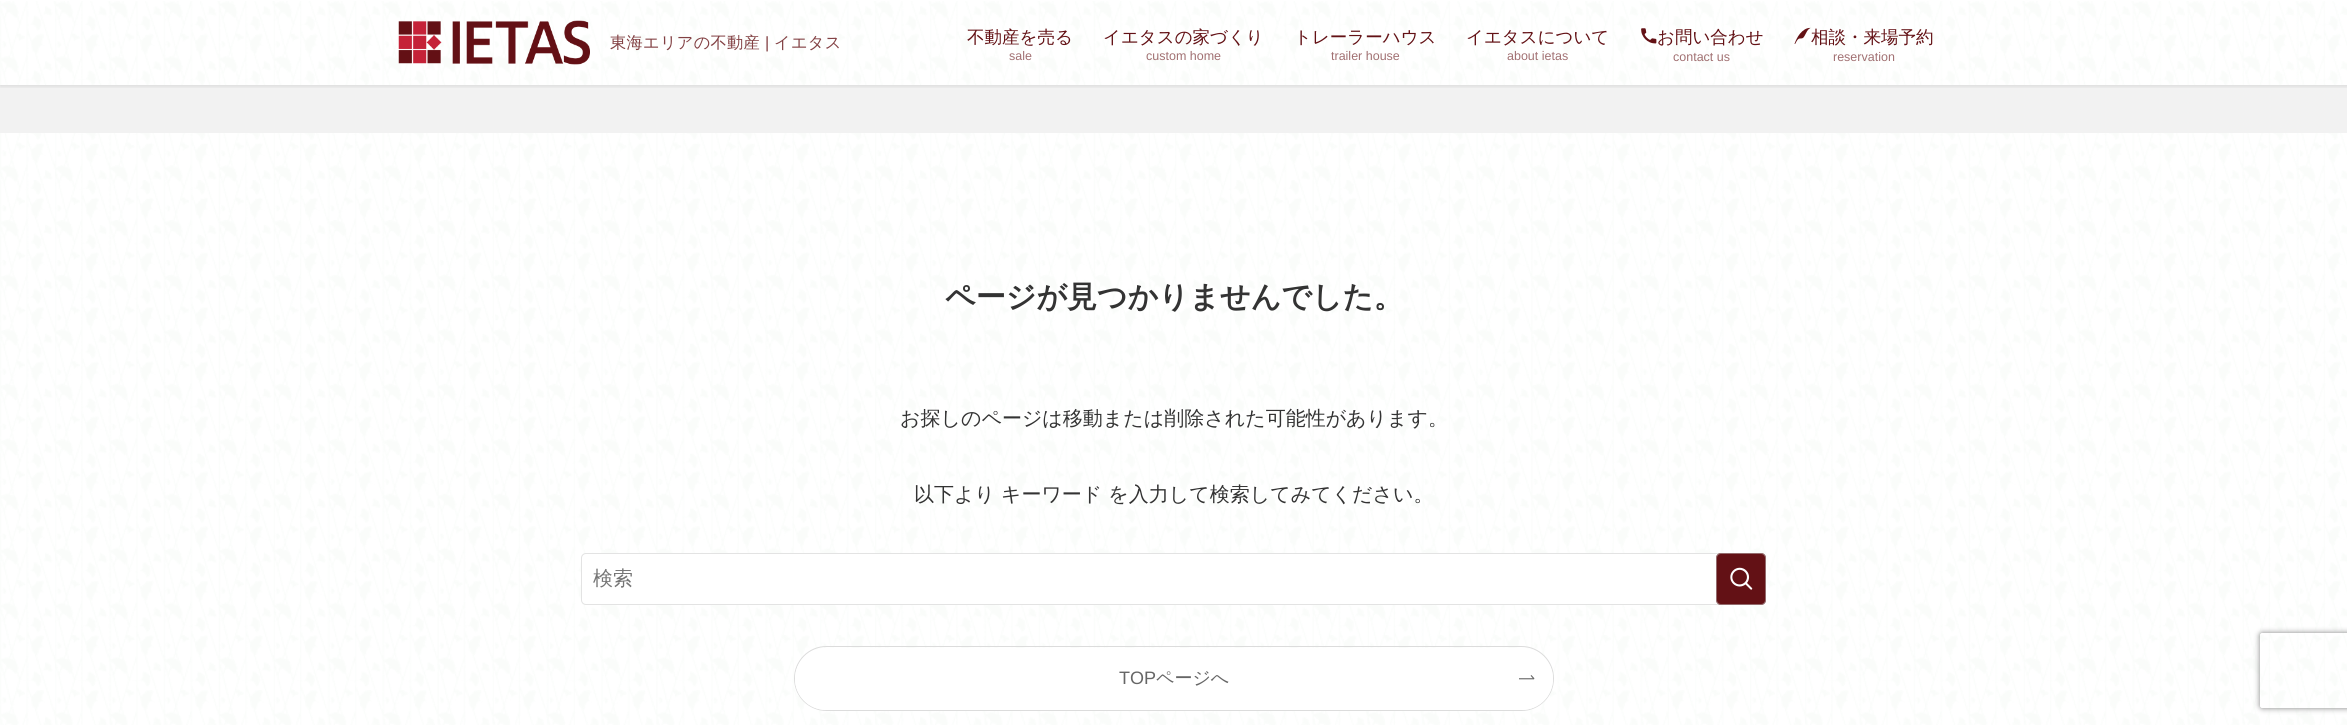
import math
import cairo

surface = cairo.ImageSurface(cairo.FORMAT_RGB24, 2347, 725)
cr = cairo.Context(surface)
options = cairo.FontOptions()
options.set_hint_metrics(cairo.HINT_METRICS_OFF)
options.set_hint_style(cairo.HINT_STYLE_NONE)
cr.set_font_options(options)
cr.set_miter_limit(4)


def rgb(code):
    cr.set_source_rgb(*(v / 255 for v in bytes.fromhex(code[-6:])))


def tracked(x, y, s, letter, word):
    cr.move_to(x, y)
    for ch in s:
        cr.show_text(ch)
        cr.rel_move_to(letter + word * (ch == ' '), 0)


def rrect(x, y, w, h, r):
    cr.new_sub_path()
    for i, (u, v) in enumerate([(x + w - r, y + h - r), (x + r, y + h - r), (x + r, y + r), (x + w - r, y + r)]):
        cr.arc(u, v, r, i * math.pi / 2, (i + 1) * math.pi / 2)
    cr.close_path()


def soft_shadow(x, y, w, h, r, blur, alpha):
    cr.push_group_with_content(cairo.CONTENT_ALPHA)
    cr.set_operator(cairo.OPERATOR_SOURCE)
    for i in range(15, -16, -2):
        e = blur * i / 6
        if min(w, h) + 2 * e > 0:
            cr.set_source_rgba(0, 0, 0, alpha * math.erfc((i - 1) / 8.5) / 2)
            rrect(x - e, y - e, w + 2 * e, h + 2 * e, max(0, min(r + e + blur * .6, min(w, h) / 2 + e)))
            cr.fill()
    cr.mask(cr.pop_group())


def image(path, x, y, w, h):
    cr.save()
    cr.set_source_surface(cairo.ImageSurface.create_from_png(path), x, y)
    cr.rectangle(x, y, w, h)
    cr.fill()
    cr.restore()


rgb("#ffffff")
cr.paint()
cr.save()
cr.set_fill_rule(cairo.FILL_RULE_EVEN_ODD)
cr.new_path()
cr.move_to(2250, 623)
cr.line_to(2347, 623)
cr.line_to(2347, 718)
cr.line_to(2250, 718)
cr.close_path()
cr.move_to(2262.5, 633)
cr.line_to(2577.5, 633)
cr.curve_to(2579, 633, 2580, 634, 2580, 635.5)
cr.line_to(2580, 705.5)
cr.curve_to(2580, 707, 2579, 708, 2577.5, 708)
cr.line_to(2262.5, 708)
cr.curve_to(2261, 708, 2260, 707, 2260, 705.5)
cr.line_to(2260, 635.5)
cr.curve_to(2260, 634, 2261, 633, 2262.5, 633)
cr.close_path()
cr.clip()
rgb("#808080")
soft_shadow(2260, 633, 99, 75, 2.5, 3, 1)
cr.restore()
image("img/1.png", 0, 1, 2347, 724)
rgb("#f2f2f2")
cr.rectangle(0, 85, 2347, 48)
cr.fill()
cr.save()
cr.rectangle(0, 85, 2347, 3)
cr.clip()
rgb("#000000")
soft_shadow(0, 1, 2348, 85, 0, 2.5, 0.12)
cr.restore()
image("img/2.png", 398, 20, 192, 45)
image("img/3.png", 1641, 28, 16, 16)
image("img/4.png", 1794, 27, 17, 17)
rgb("#ffffff")
rrect(581.5, 553.5, 1184, 51, 4.5)
cr.fill_preserve()
rgb("#e3e3e3")
cr.set_line_width(1)
cr.stroke()
rgb("#631115")
rrect(1716, 553, 50, 52, 5)
cr.fill()
rrect(1716.5, 553.5, 49, 51, 4.5)
cr.set_source_rgba(0.78, 0.78, 0.78, 0.5)
cr.stroke()
image("img/5.png", 1730, 567, 23, 23)
rrect(794.5, 646.5, 759, 64, 32)
rgb("#dcdcdc")
cr.stroke()
rgb("#ffffff")
rrect(795, 648, 758, 62, 31)
cr.fill()
image("img/6.png", 1519, 675, 16, 5)
cr.select_font_face("WenQuanYi Zen Hei Medium")
cr.set_font_size(16.25)
rgb("#824043")
tracked(610, 48, "東海エリアの不動産", 0.25, 0)
cr.select_font_face("Liberation Sans")
tracked(765, 48, "|", 0.25, 0)
cr.select_font_face("WenQuanYi Zen Hei Medium")
tracked(774, 48, "イエタス", 0.25, 0)
cr.set_font_size(17.5)
rgb("#631115")
cr.move_to(967, 43)
cr.show_text("不動産を売る")
cr.select_font_face("Liberation Sans")
cr.set_font_size(12.5)
rgb("#a17072")
cr.move_to(1009, 60)
cr.show_text("sale")
cr.select_font_face("WenQuanYi Zen Hei Medium")
cr.set_font_size(17.5)
rgb("#631115")
cr.move_to(1103, 43)
cr.show_text("イエタスの家づくり")
cr.select_font_face("Liberation Sans")
cr.set_font_size(12.5)
rgb("#a17072")
cr.move_to(1146, 60)
cr.show_text("custom home")
cr.select_font_face("WenQuanYi Zen Hei Medium")
cr.set_font_size(17.5)
rgb("#631115")
cr.move_to(1294, 43)
cr.show_text("トレーラーハウス")
cr.select_font_face("Liberation Sans")
cr.set_font_size(12.5)
rgb("#a17072")
cr.move_to(1331, 60)
cr.show_text("trailer house")
cr.select_font_face("WenQuanYi Zen Hei Medium")
cr.set_font_size(17.5)
rgb("#631115")
cr.move_to(1466, 43)
cr.show_text("イエタスについて")
cr.select_font_face("Liberation Sans")
cr.set_font_size(12.5)
rgb("#a17072")
cr.move_to(1507, 60)
cr.show_text("about ietas")
cr.select_font_face("WenQuanYi Zen Hei Medium")
cr.set_font_size(17.5)
rgb("#631115")
cr.move_to(1657, 43)
cr.show_text("お問い合わせ")
cr.select_font_face("Liberation Sans")
cr.set_font_size(12.5)
rgb("#a17072")
cr.move_to(1673, 61)
cr.show_text("contact us")
cr.select_font_face("WenQuanYi Zen Hei Medium")
cr.set_font_size(17.5)
rgb("#631115")
cr.move_to(1811, 43)
cr.show_text("相談・来場予約")
cr.select_font_face("Liberation Sans")
cr.set_font_size(12.5)
rgb("#a17072")
cr.move_to(1833, 61)
cr.show_text("reservation")
cr.select_font_face("WenQuanYi Zen Hei", cairo.FONT_SLANT_NORMAL, cairo.FONT_WEIGHT_BOLD)
cr.set_font_size(30)
rgb("#333333")
cr.move_to(945, 307)
cr.show_text("ページが見つかりませんでした。")
cr.select_font_face("WenQuanYi Zen Hei Medium")
cr.set_font_size(20)
cr.move_to(900, 425)
cr.show_text("お探しのページは移動または削除された可能性があります。")
cr.move_to(914, 501)
cr.show_text("以下より キーワード を入力して検索してみてください。")
rgb("#757575")
cr.move_to(593, 585)
cr.show_text("検索")
cr.select_font_face("Liberation Sans")
cr.set_font_size(18)
rgb("#666666")
cr.move_to(1119, 684)
cr.show_text("TOP")
cr.select_font_face("WenQuanYi Zen Hei Medium")
cr.move_to(1156, 684)
cr.show_text("ページへ")
surface.write_to_png("page.png")
